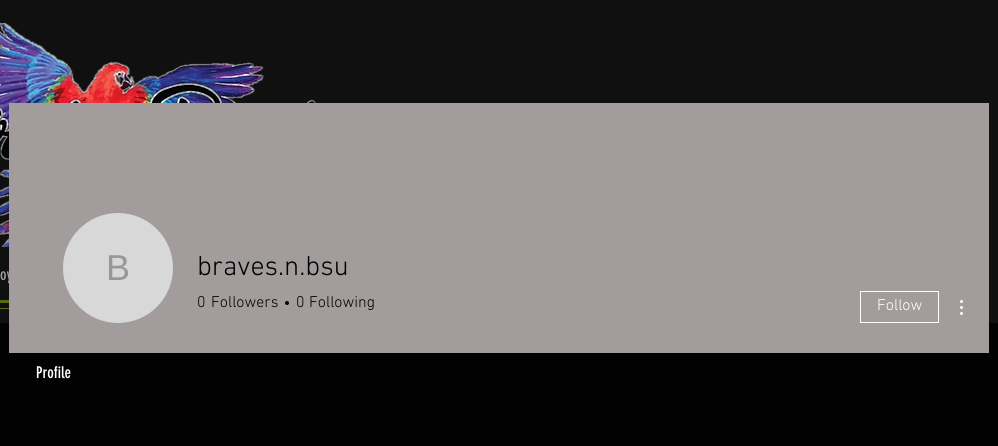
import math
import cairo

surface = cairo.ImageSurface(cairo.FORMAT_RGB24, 998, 446)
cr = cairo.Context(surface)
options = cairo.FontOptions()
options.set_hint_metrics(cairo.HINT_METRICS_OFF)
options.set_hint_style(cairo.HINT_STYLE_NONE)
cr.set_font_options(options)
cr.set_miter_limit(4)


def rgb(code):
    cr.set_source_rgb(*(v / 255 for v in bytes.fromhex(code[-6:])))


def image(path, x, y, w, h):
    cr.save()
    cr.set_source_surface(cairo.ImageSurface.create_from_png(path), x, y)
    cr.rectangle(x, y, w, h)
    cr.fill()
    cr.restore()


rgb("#020202")
cr.paint()
rgb("#101010")
cr.rectangle(0, 0, 998, 323)
cr.fill()
image("img/1.png", 0, 23, 317, 224)
for x, y, w, h, color in [
    (0, 300, 9, 3, "#556d0e"),
    (0, 308, 9, 1, "#556d0e"),
    (9, 103, 980, 250, "#a29c9c"),
]:
    rgb(color)
    cr.rectangle(x, y, w, h)
    cr.fill()
rgb("#d8d8d8")
cr.arc(118, 268, 55, 0, 2 * math.pi)
cr.fill()
rgb("#020202")
cr.arc(287, 303, 2, 0, 2 * math.pi)
cr.fill()
cr.rectangle(860.5, 291.5, 78, 31)
rgb("#ffffff")
cr.set_line_width(1)
cr.stroke()
image("img/2.png", 960, 300, 3, 15)
cr.select_font_face("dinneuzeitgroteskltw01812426")
cr.set_font_size(16)
rgb("#a29c9c")
cr.move_to(0, 280)
cr.show_text("oy")
cr.select_font_face("Liberation Sans")
cr.set_font_size(36)
rgb("#979797")
cr.move_to(106, 280)
cr.show_text("B")
cr.select_font_face("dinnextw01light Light")
cr.set_font_size(28)
rgb("#020202")
cr.move_to(197, 275)
cr.show_text("braves.n.bsu")
cr.set_font_size(16)
for x, y, s in [
    (197, 307, "0"),
    (211, 307, "Followers"),
    (296, 307, "0"),
    (309, 307, "Following"),
]:
    cr.move_to(x, y)
    cr.show_text(s)
rgb("#ffffff")
cr.move_to(877, 310)
cr.show_text("Follow")
cr.select_font_face("dinneuzeitgroteskltw01812426")
cr.move_to(36, 378)
cr.show_text("Profile")
surface.write_to_png("page.png")
